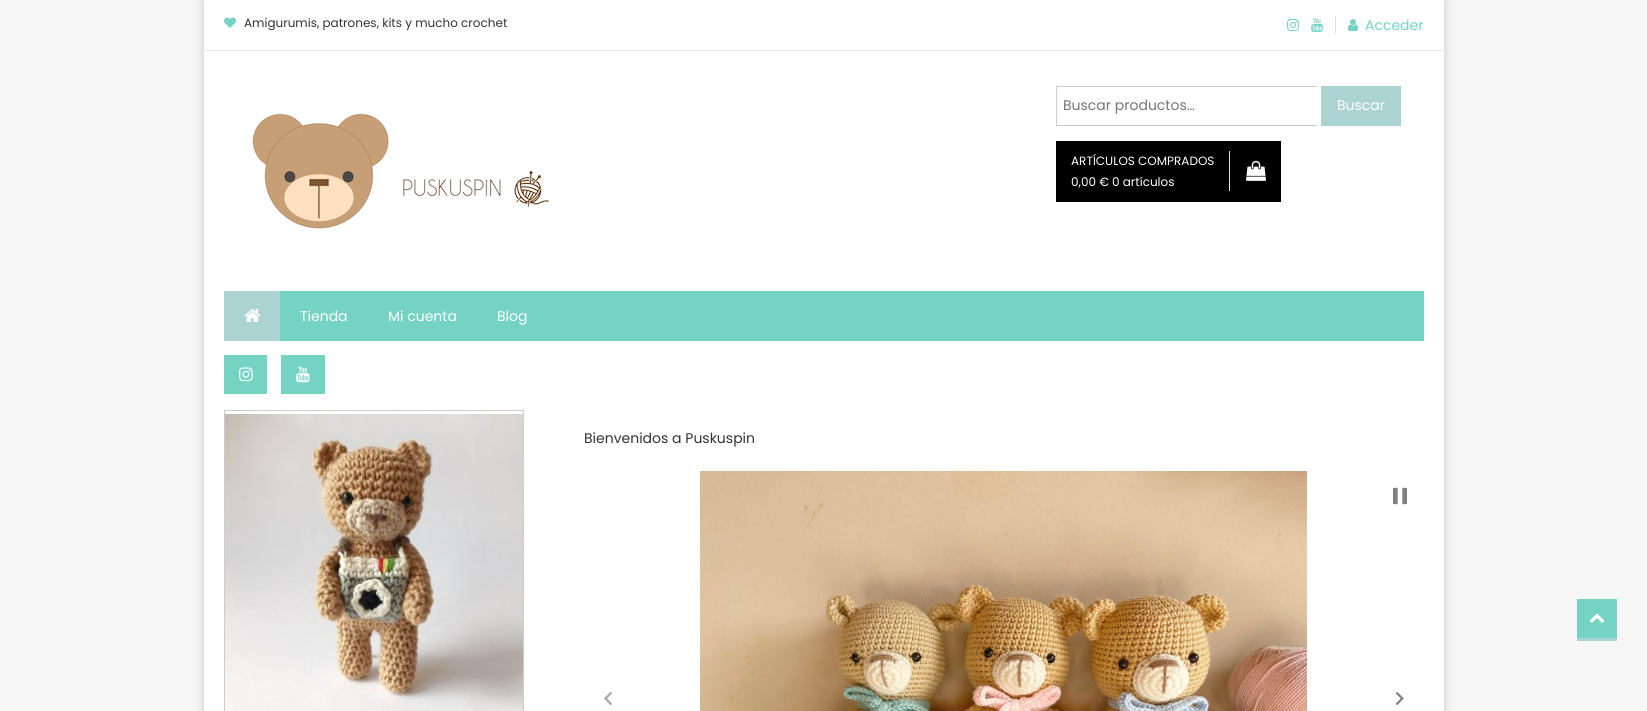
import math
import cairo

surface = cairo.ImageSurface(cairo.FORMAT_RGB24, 1647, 711)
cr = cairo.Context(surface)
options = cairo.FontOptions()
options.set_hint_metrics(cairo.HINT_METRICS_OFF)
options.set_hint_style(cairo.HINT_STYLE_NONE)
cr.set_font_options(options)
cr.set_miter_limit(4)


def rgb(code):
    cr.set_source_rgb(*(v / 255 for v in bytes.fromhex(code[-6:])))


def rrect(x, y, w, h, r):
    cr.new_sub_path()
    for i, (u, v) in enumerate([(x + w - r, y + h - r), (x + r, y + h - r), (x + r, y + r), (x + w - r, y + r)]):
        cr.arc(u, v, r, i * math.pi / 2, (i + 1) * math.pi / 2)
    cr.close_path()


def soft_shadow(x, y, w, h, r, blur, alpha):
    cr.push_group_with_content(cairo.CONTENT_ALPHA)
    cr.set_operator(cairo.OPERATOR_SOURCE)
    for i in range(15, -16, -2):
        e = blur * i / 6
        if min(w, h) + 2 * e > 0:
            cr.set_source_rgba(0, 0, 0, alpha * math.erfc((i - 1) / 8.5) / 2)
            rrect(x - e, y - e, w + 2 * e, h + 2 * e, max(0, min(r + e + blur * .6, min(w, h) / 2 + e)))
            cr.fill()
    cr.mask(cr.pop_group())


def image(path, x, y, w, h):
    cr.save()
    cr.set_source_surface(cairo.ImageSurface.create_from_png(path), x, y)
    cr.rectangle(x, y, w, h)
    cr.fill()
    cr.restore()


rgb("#f6f6f6")
cr.paint()
rgb("#c7c7c7")
soft_shadow(204, 0, 1240, 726, 0, 5, 1)
rgb("#ffffff")
cr.rectangle(204, 0, 1240, 711)
cr.fill()
rgb("#eaeaea")
cr.rectangle(204, 50, 1240, 1)
cr.fill()
image("img/1.png", 224, 17, 12, 11)
image("img/2.png", 1287, 19, 12, 12)
image("img/3.png", 1311, 18, 12, 14)
rgb("#e1e1e1")
cr.rectangle(1335, 16, 1, 18)
cr.fill()
image("img/4.png", 1348, 19, 10, 12)
image("img/5.png", 252, 113, 297, 116)
for x, y, w, h, color in [
    (1056, 86, 261, 1, "#cccccc"),
    (1056, 125, 261, 1, "#cccccc"),
    (1056, 86, 1, 40, "#cccccc"),
    (1321, 86, 80, 40, "#abd3d2"),
    (1056, 141, 225, 61, "#000000"),
    (1229, 151, 1, 40, "#e1e1e1"),
]:
    rgb(color)
    cr.rectangle(x, y, w, h)
    cr.fill()
image("img/6.png", 1246, 160, 20, 21)
rgb("#74d3c3")
cr.rectangle(280, 291, 1144, 50)
cr.fill()
rgb("#abd3d2")
cr.rectangle(224, 291, 56, 50)
cr.fill()
image("img/7.png", 244, 309, 17, 13)
rgb("#74d3c3")
cr.rectangle(224, 355, 43, 39)
cr.fill()
image("img/8.png", 239, 367, 14, 15)
cr.rectangle(281, 355, 44, 39)
cr.fill()
image("img/9.png", 296, 366, 14, 17)
cr.rectangle(224.5, 410.5, 299, 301)
rgb("#cccccc")
cr.set_line_width(1)
cr.stroke()
image("img/10.png", 225, 414, 298, 297)
image("img/11.png", 700, 471, 607, 240)
image("img/12.png", 1393, 487, 14, 18)
image("img/13.png", 604, 692, 8, 13)
image("img/14.png", 1395, 692, 9, 13)
rgb("#74d3c3")
cr.rectangle(1577, 599, 40, 39)
cr.fill()
rgb("#abd3d2")
cr.rectangle(1577, 638, 40, 3)
cr.fill()
image("img/15.png", 1589, 613, 16, 10)
cr.select_font_face("Poppins")
cr.set_font_size(12)
rgb("#333333")
cr.move_to(244, 27)
cr.show_text("Amigurumis, patrones, kits y mucho crochet")
cr.set_font_size(14)
rgb("#74d3c3")
cr.move_to(1365, 30)
cr.show_text("Acceder")
rgb("#757575")
cr.move_to(1063, 110)
cr.show_text("Buscar productos…")
rgb("#ffffff")
cr.move_to(1337, 110)
cr.show_text("Buscar")
cr.set_font_size(12)
for x, y, s in [
    (1071, 165, "ARTÍCULOS COMPRADOS"),
    (1071, 186, "0,00 €"),
    (1112, 186, "0 artículos"),
]:
    cr.move_to(x, y)
    cr.show_text(s)
cr.set_font_size(14)
for x, y, s in [
    (300, 321, "Tienda"),
    (388, 321, "Mi cuenta"),
    (497, 321, "Blog"),
]:
    cr.move_to(x, y)
    cr.show_text(s)
rgb("#333333")
cr.move_to(584, 443)
cr.show_text("Bienvenidos a Puskuspin")
surface.write_to_png("page.png")
